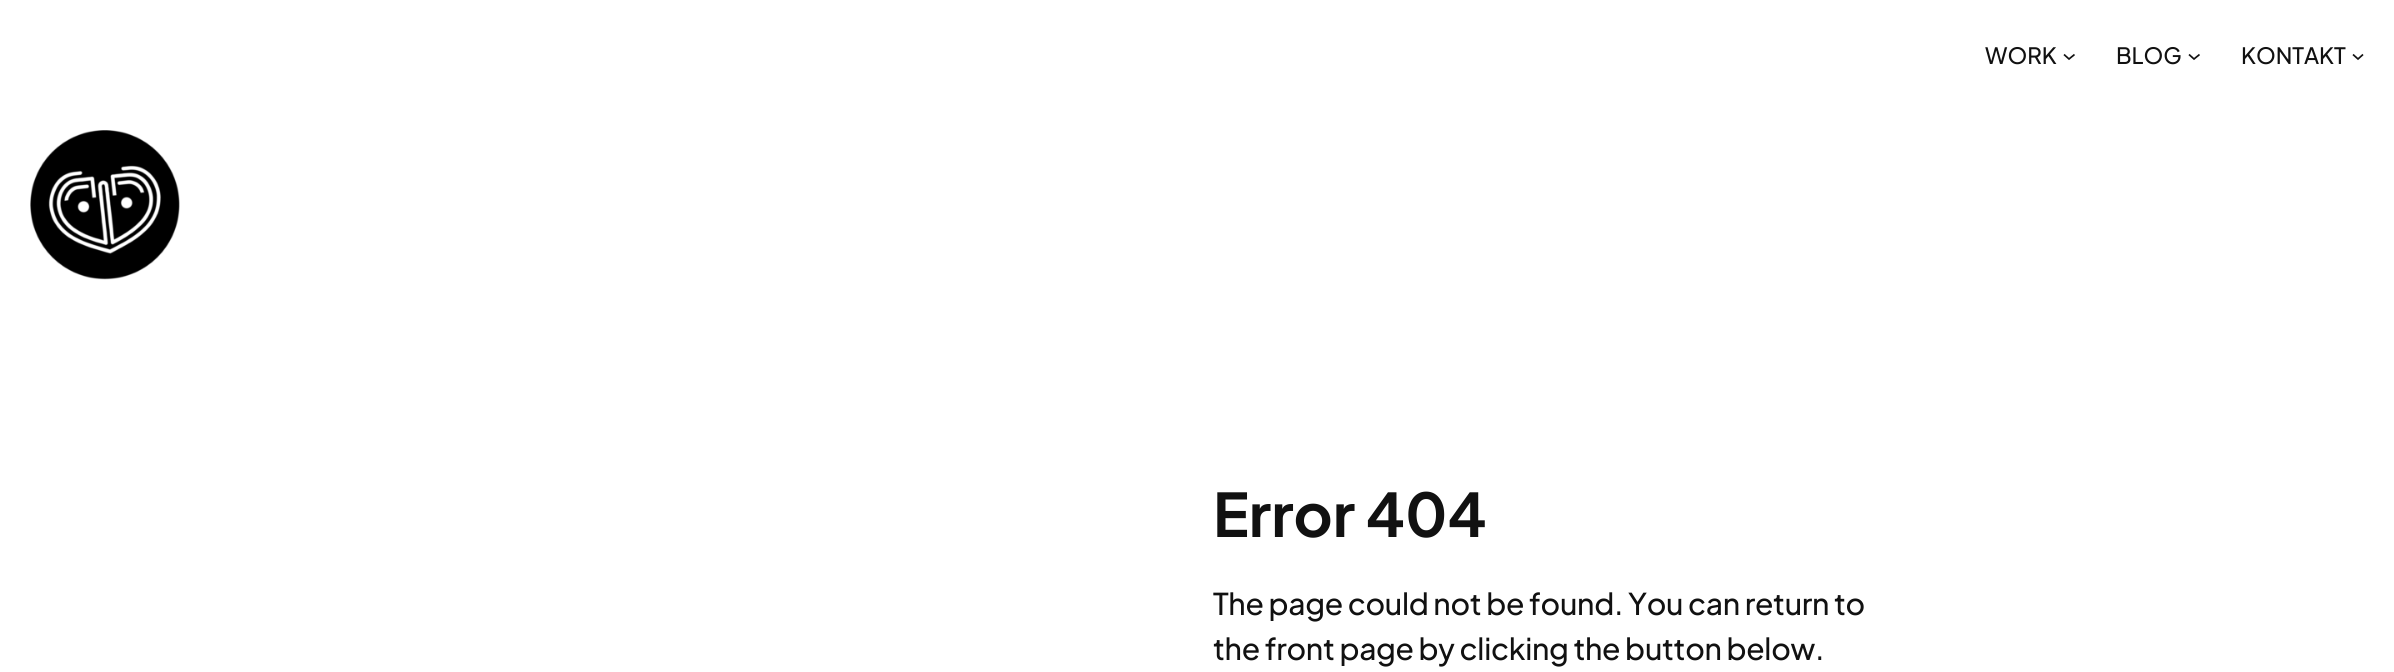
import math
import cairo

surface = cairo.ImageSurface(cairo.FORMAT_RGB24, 2394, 672)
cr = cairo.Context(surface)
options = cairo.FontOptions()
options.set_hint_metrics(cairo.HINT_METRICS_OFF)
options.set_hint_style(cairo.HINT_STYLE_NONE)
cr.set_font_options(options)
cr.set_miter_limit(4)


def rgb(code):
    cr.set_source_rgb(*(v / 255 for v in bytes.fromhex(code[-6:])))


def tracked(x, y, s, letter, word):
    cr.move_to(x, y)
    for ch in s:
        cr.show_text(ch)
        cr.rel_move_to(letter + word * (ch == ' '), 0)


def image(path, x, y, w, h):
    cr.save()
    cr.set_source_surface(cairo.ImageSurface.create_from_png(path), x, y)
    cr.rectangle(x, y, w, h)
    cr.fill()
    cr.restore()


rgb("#ffffff")
cr.paint()
cr.new_path()
cr.move_to(2064, 54.5)
cr.line_to(2069, 59)
cr.line_to(2074.5, 54.5)
rgb("#111111")
cr.set_line_width(1.7)
cr.stroke()
cr.new_path()
cr.move_to(2189, 54.5)
cr.line_to(2194, 59)
cr.line_to(2199.5, 54.5)
cr.stroke()
cr.new_path()
cr.move_to(2353, 54.5)
cr.line_to(2358, 59)
cr.line_to(2363, 54.5)
cr.stroke()
image("img/1.png", 30, 130, 150, 150)
cr.select_font_face("Plus Jakarta Sans Medium")
cr.set_font_size(22.5)
for x, y, s in [
    (1985, 64, "WORK"),
    (2116, 64, "BLOG"),
    (2241, 64, "KONTAKT"),
]:
    cr.move_to(x, y)
    cr.show_text(s)
cr.select_font_face("Plus Jakarta Sans", cairo.FONT_SLANT_NORMAL, cairo.FONT_WEIGHT_BOLD)
cr.set_font_size(60)
cr.move_to(1213, 537)
cr.show_text("Error 404")
cr.select_font_face("Plus Jakarta Sans Medium")
cr.set_font_size(30)
tracked(1213, 615, "The page could not be found. You can return to", -0.3, 0)
tracked(1213, 660, "the front page by clicking the button below.", -0.3, 0)
surface.write_to_png("page.png")
